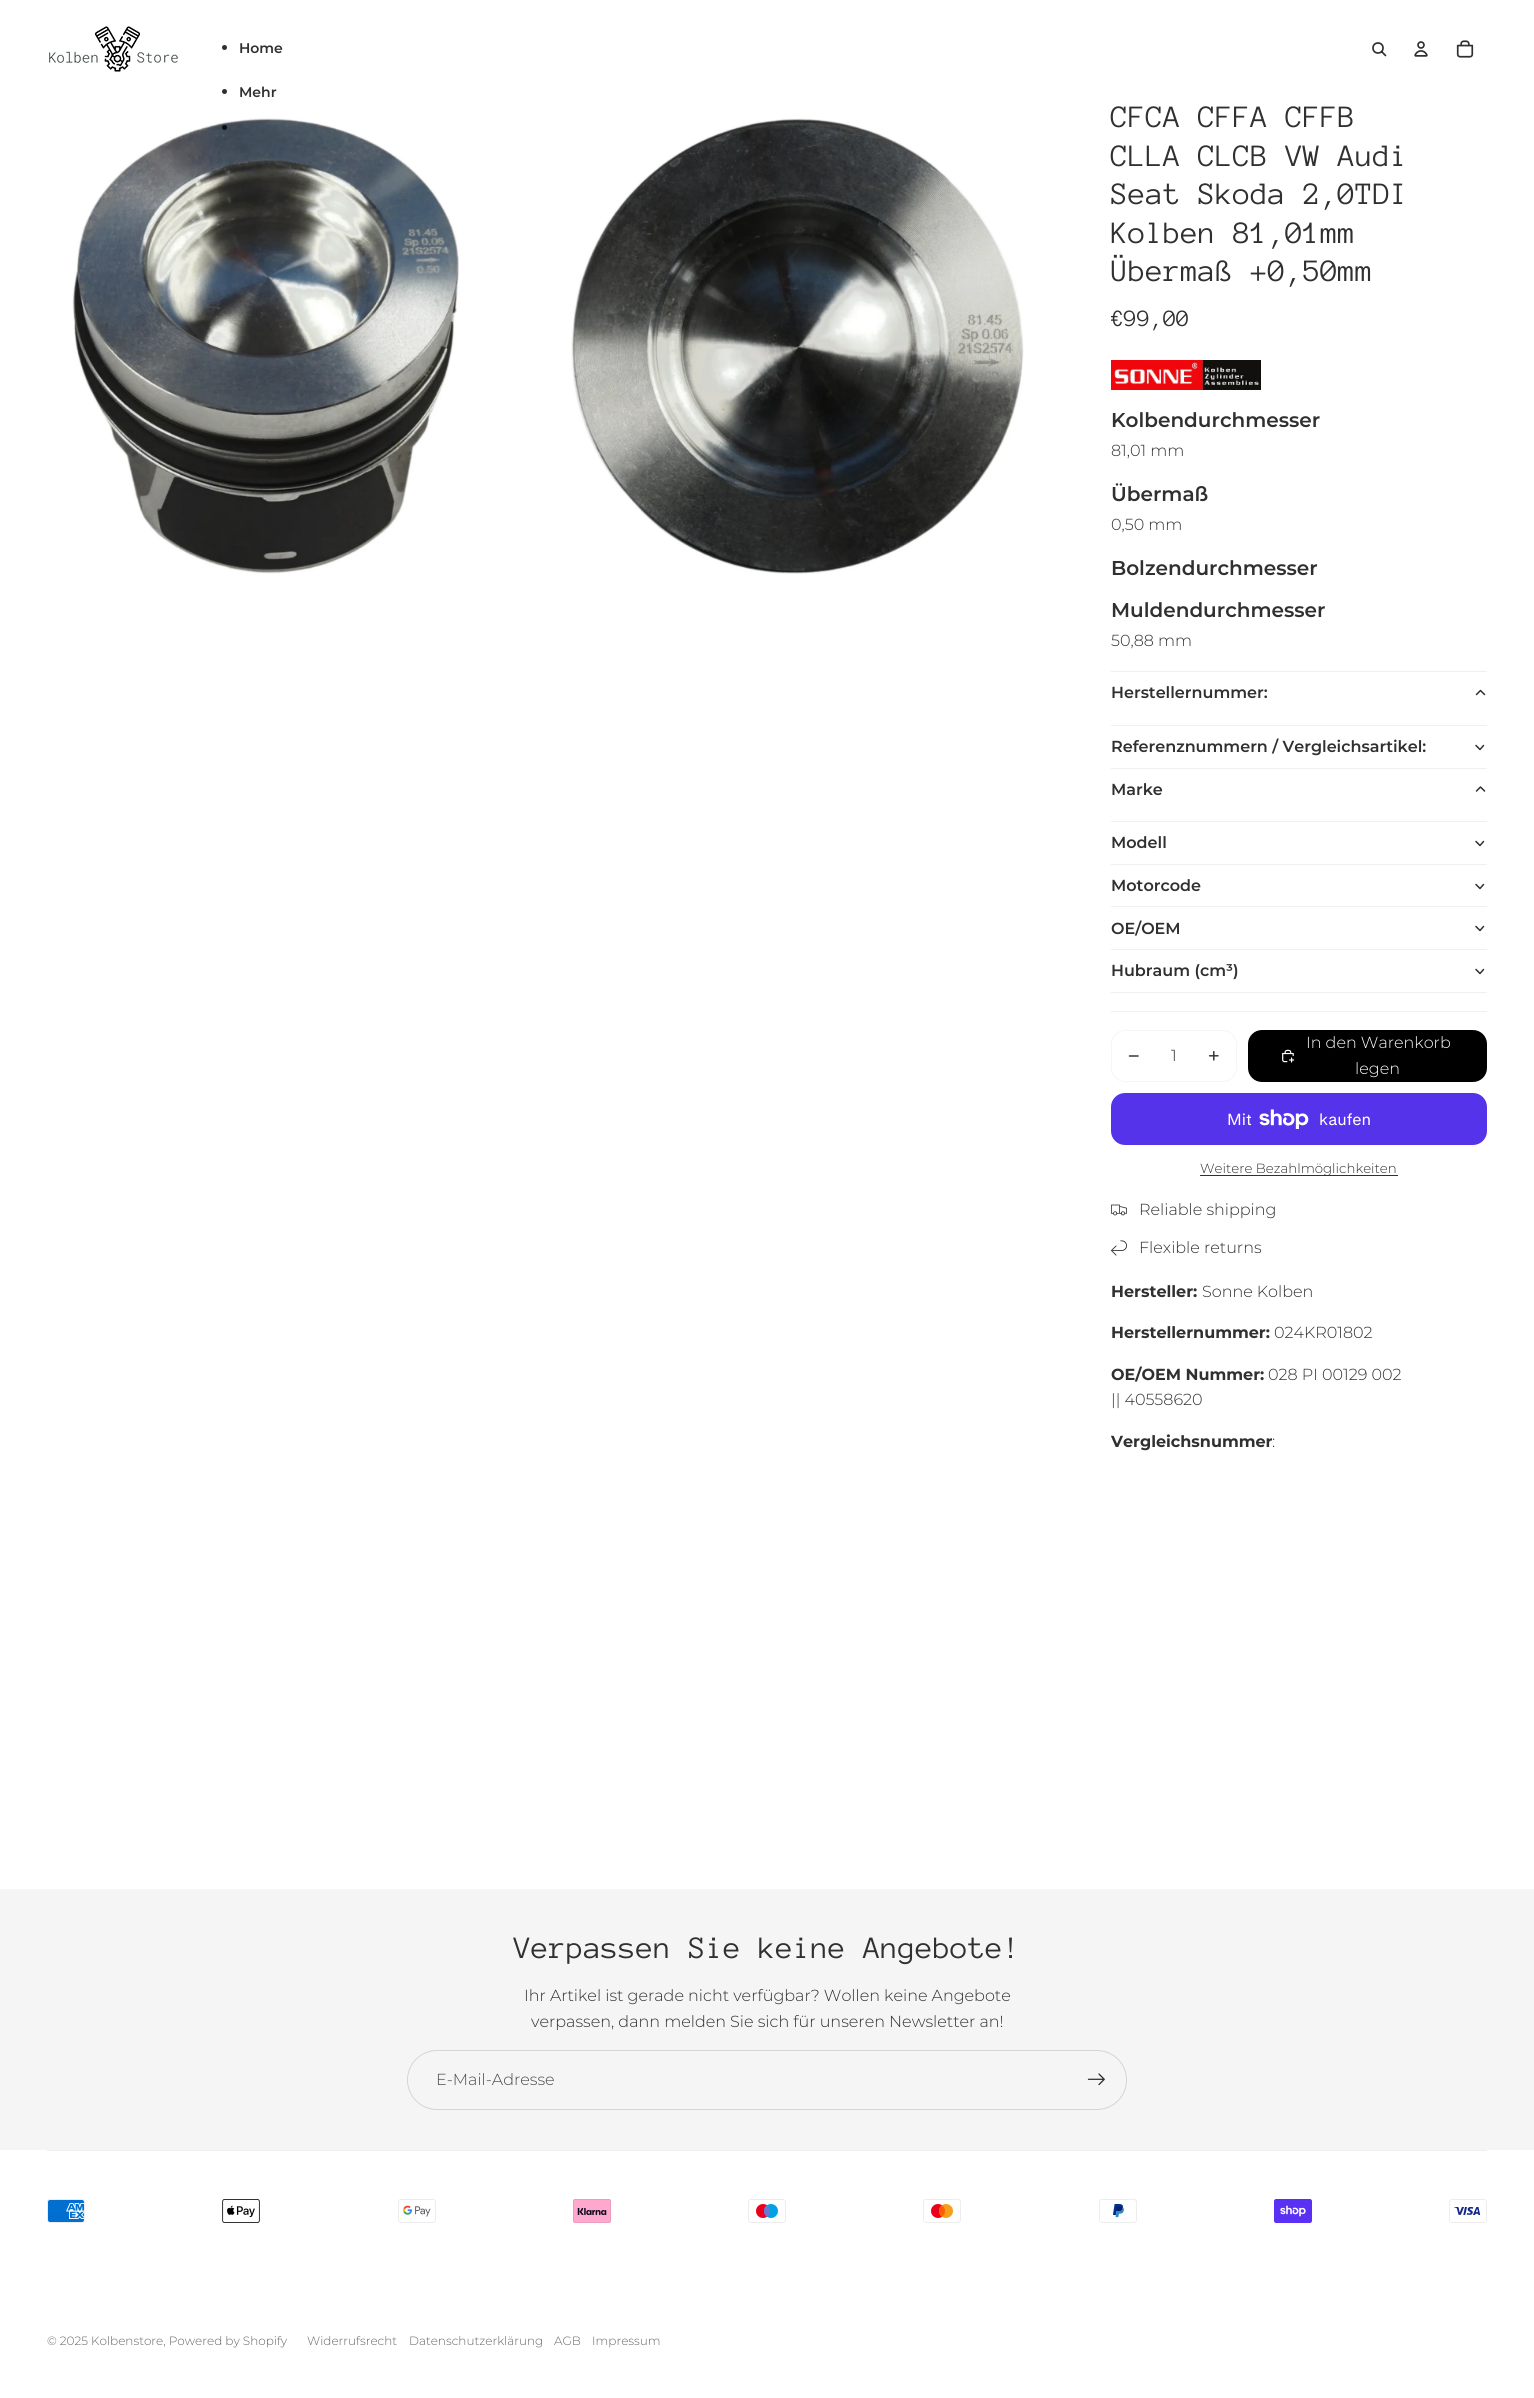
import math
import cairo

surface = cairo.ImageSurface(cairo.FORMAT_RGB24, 1534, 2398)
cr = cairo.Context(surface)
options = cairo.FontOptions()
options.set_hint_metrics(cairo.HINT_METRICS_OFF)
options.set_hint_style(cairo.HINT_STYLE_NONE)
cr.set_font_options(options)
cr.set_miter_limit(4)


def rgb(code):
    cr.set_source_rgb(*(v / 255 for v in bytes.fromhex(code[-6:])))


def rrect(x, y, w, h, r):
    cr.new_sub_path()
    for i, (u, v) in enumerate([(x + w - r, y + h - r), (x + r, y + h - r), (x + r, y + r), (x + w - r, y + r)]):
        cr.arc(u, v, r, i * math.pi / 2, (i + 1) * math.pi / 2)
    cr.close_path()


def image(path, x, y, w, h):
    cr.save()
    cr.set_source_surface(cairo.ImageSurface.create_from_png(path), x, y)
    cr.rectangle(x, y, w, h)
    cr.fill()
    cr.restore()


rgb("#ffffff")
cr.paint()
image("img/1.png", 49, 26, 129, 46)
rgb("#303030")
cr.arc(224.5, 47.5, 2.5, 0, 2 * math.pi)
cr.fill()
cr.arc(224.5, 91.5, 2.5, 0, 2 * math.pi)
cr.fill()
image("img/4.png", 72, 118, 387, 456)
cr.set_source_rgba(0, 0, 0, 0.81)
cr.arc(224.5, 127.5, 2.5, 0, 2 * math.pi)
cr.fill()
cr.arc(1378, 48, 5, 0, 2 * math.pi)
rgb("#303030")
cr.set_line_width(1.7)
cr.stroke()
cr.new_path()
cr.move_to(1382, 52)
cr.line_to(1385.5, 55.5)
cr.set_source_rgba(0, 0, 0, 0.81)
cr.set_line_cap(cairo.LINE_CAP_ROUND)
cr.set_line_join(cairo.LINE_JOIN_ROUND)
cr.stroke()
image("img/2.png", 1414, 41, 14, 16)
image("img/3.png", 1456, 40, 18, 18)
image("img/5.png", 571, 118, 453, 456)
image("img/6.png", 1111, 360, 150, 30)
rgb("#f0f0f0")
cr.rectangle(1111, 671, 376, 1)
cr.fill()
cr.new_path()
cr.move_to(1476.5, 694.5)
cr.line_to(1480.5, 690.5)
cr.line_to(1484.5, 694.5)
rgb("#303030")
cr.set_line_width(1.5)
cr.stroke()
rgb("#f0f0f0")
cr.rectangle(1111, 725, 376, 1)
cr.fill()
cr.new_path()
cr.move_to(1483.5, 745.5)
cr.line_to(1480, 749.5)
cr.line_to(1476, 745.5)
rgb("#303030")
cr.stroke()
rgb("#f0f0f0")
cr.rectangle(1111, 768, 376, 1)
cr.fill()
cr.new_path()
cr.move_to(1476.5, 791)
cr.line_to(1480.5, 787)
cr.line_to(1484.5, 791)
rgb("#303030")
cr.stroke()
rgb("#f0f0f0")
cr.rectangle(1111, 821, 376, 1)
cr.fill()
cr.rectangle(1111, 864, 376, 1)
cr.fill()
cr.new_path()
cr.move_to(1483.5, 841.5)
cr.line_to(1480, 845.5)
cr.line_to(1476, 841.5)
cr.move_to(1483.5, 884.5)
cr.line_to(1480, 888.5)
cr.line_to(1476, 884.5)
rgb("#303030")
cr.stroke()
rgb("#f0f0f0")
cr.rectangle(1111, 906, 376, 1)
cr.fill()
cr.rectangle(1111, 949, 376, 1)
cr.fill()
cr.new_path()
cr.move_to(1483.5, 926.5)
cr.line_to(1480, 930.5)
cr.line_to(1476, 926.5)
cr.move_to(1483.5, 969.5)
cr.line_to(1480, 973.5)
cr.line_to(1476, 969.5)
rgb("#303030")
cr.stroke()
rgb("#f0f0f0")
cr.rectangle(1111, 992, 376, 1)
cr.fill()
cr.new_path()
cr.move_to(1487, 1011)
cr.line_to(1487, 1012)
cr.line_to(1486, 1011)
cr.close_path()
cr.fill()
cr.set_source_rgba(0, 0, 0, 0.06)
cr.new_path()
cr.move_to(1487, 1012)
cr.line_to(1111, 1012)
cr.line_to(1111, 1011)
cr.line_to(1486, 1011)
cr.close_path()
cr.fill()
rrect(1111.5, 1030.5, 125, 51, 13.5)
rgb("#f5f5f5")
cr.set_line_width(1)
cr.set_line_cap(cairo.LINE_CAP_BUTT)
cr.set_line_join(cairo.LINE_JOIN_MITER)
cr.stroke()
cr.new_path()
cr.move_to(1129.5, 1056)
cr.line_to(1138, 1056)
rgb("#333333")
cr.set_line_width(1.5)
cr.set_line_cap(cairo.LINE_CAP_ROUND)
cr.stroke()
image("img/7.png", 1208, 1050, 11, 11)
rgb("#000000")
rrect(1248, 1030, 239, 52, 14)
cr.fill()
image("img/8.png", 1282, 1049, 13, 14)
rgb("#5433eb")
rrect(1111, 1093, 376, 52, 14)
cr.fill()
image("img/9.png", 1259, 1109, 50, 20)
rgb("#303030")
cr.rectangle(1200, 1175, 198, 1)
cr.fill()
image("img/10.png", 1111, 1204, 16, 12)
image("img/11.png", 1111, 1240, 16, 16)
rgb("#f5f5f5")
cr.rectangle(0, 1889, 1534, 261)
cr.fill()
rrect(407.5, 2050.5, 719, 59, 29.5)
rgb("#d5d5d5")
cr.set_line_width(1)
cr.set_line_cap(cairo.LINE_CAP_BUTT)
cr.stroke()
image("img/12.png", 1087, 2073, 18, 13)
rgb("#f0f0f0")
cr.new_path()
cr.move_to(1487, 2150)
cr.line_to(1487, 2151)
cr.line_to(1486, 2150)
cr.close_path()
cr.fill()
cr.set_source_rgba(0, 0, 0, 0.06)
cr.new_path()
cr.move_to(1487, 2151)
cr.line_to(47, 2151)
cr.line_to(47, 2150)
cr.line_to(1486, 2150)
cr.close_path()
cr.fill()
image("img/13.png", 47, 2199, 38, 24)
image("img/14.png", 222, 2199, 38, 24)
image("img/15.png", 398, 2199, 38, 24)
image("img/16.png", 573, 2199, 38, 24)
image("img/17.png", 748, 2199, 38, 24)
image("img/18.png", 923, 2199, 38, 24)
image("img/19.png", 1099, 2199, 38, 24)
image("img/20.png", 1274, 2199, 38, 24)
image("img/21.png", 1449, 2199, 38, 24)
cr.select_font_face("Montserrat SemiBold")
cr.set_font_size(14)
rgb("#303030")
cr.move_to(239, 53)
cr.show_text("Home")
cr.move_to(239, 97)
cr.show_text("Mehr")
cr.select_font_face("Anonymous Pro")
cr.set_font_size(32)
for x, y, s in [
    (1111, 127, "CFCA CFFA CFFB"),
    (1111, 166, "CLLA CLCB VW Audi"),
    (1111, 204, "Seat Skoda 2,0TDI"),
    (1111, 243, "Kolben 81,01mm"),
    (1111, 281, "Übermaß +0,50mm"),
]:
    cr.move_to(x, y)
    cr.show_text(s)
cr.set_font_size(24)
cr.move_to(1111, 326)
cr.show_text("€99,00")
cr.select_font_face("Montserrat SemiBold")
cr.set_font_size(20)
cr.move_to(1111, 427)
cr.show_text("Kolbendurchmesser")
cr.select_font_face("Montserrat Light")
cr.set_font_size(16)
cr.move_to(1111, 456)
cr.show_text("81,01 mm")
cr.select_font_face("Montserrat SemiBold")
cr.set_font_size(20)
cr.move_to(1111, 501)
cr.show_text("Übermaß")
cr.select_font_face("Montserrat Light")
cr.set_font_size(16)
cr.move_to(1111, 530)
cr.show_text("0,50 mm")
cr.select_font_face("Montserrat SemiBold")
cr.set_font_size(20)
cr.move_to(1111, 575)
cr.show_text("Bolzendurchmesser")
cr.move_to(1111, 617)
cr.show_text("Muldendurchmesser")
cr.select_font_face("Montserrat Light")
cr.set_font_size(16)
cr.move_to(1111, 646)
cr.show_text("50,88 mm")
cr.select_font_face("Montserrat SemiBold")
for x, y, s in [
    (1111, 698, "Herstellernummer:"),
    (1111, 752, "Referenznummern / Vergleichsartikel:"),
    (1111, 795, "Marke"),
    (1111, 848, "Modell"),
    (1111, 891, "Motorcode"),
    (1111, 934, "OE/OEM"),
    (1111, 976, "Hubraum (cm³)"),
]:
    cr.move_to(x, y)
    cr.show_text(s)
cr.select_font_face("Montserrat Light")
cr.move_to(1171, 1061)
cr.show_text("1")
rgb("#ffffff")
cr.move_to(1306, 1048)
cr.show_text("In den Warenkorb")
cr.move_to(1355, 1074)
cr.show_text("legen")
cr.select_font_face("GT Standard")
cr.move_to(1227, 1125)
cr.show_text("Mit")
cr.move_to(1319, 1125)
cr.show_text("kaufen")
cr.select_font_face("Montserrat Light")
cr.set_font_size(13.3)
rgb("#303030")
cr.move_to(1200, 1173)
cr.show_text("Weitere Bezahlmöglichkeiten")
cr.set_font_size(16)
cr.move_to(1139, 1215)
cr.show_text("Reliable shipping")
cr.move_to(1139, 1253)
cr.show_text("Flexible returns")
cr.select_font_face("Montserrat", cairo.FONT_SLANT_NORMAL, cairo.FONT_WEIGHT_BOLD)
cr.move_to(1111, 1297)
cr.show_text("Hersteller:")
cr.select_font_face("Montserrat Light")
cr.move_to(1202, 1297)
cr.show_text("Sonne Kolben")
cr.select_font_face("Montserrat", cairo.FONT_SLANT_NORMAL, cairo.FONT_WEIGHT_BOLD)
cr.move_to(1111, 1338)
cr.show_text("Herstellernummer:")
cr.select_font_face("Montserrat Light")
cr.move_to(1274, 1338)
cr.show_text("024KR01802")
cr.select_font_face("Montserrat", cairo.FONT_SLANT_NORMAL, cairo.FONT_WEIGHT_BOLD)
cr.move_to(1111, 1380)
cr.show_text("OE/OEM Nummer:")
cr.select_font_face("Montserrat Light")
cr.move_to(1268, 1380)
cr.show_text("028 PI 00129 002")
cr.move_to(1111, 1405)
cr.show_text("|| 40558620")
cr.select_font_face("Montserrat", cairo.FONT_SLANT_NORMAL, cairo.FONT_WEIGHT_BOLD)
cr.move_to(1111, 1447)
cr.show_text("Vergleichsnummer")
cr.select_font_face("Montserrat Light")
cr.move_to(1272, 1447)
cr.show_text(":")
cr.select_font_face("Anonymous Pro")
cr.set_font_size(32)
cr.move_to(514, 1958)
cr.show_text("Verpassen Sie keine Angebote!")
cr.select_font_face("Montserrat Light")
cr.set_font_size(16)
cr.move_to(524, 2001)
cr.show_text("Ihr Artikel ist gerade nicht verfügbar? Wollen keine Angebote")
cr.move_to(531, 2027)
cr.show_text("verpassen, dann melden Sie sich für unseren Newsletter an!")
rgb("#4a4a4a")
cr.move_to(436, 2085)
cr.show_text("E-Mail-Adresse")
cr.set_font_size(12)
rgb("#666666")
for x, y, s in [
    (47, 2345, "© 2025 Kolbenstore, Powered by Shopify"),
    (307, 2345, "Widerrufsrecht"),
    (409, 2345, "Datenschutzerklärung"),
    (554, 2345, "AGB"),
    (592, 2345, "Impressum"),
]:
    cr.move_to(x, y)
    cr.show_text(s)
surface.write_to_png("page.png")
